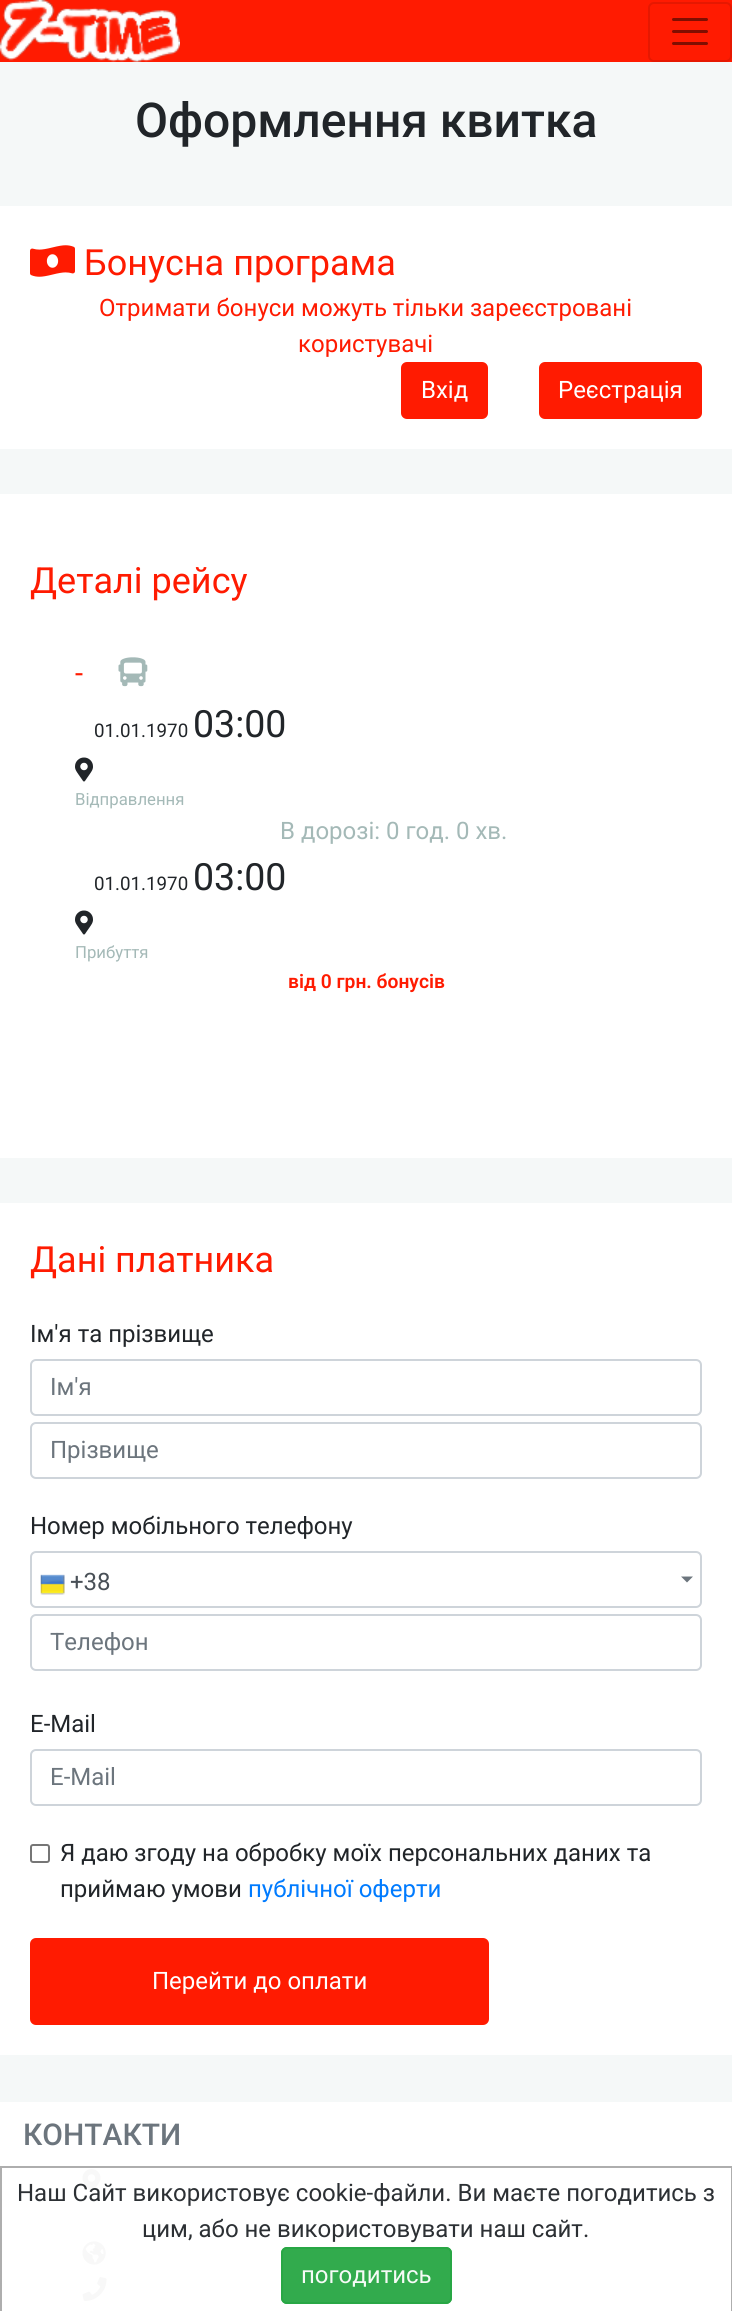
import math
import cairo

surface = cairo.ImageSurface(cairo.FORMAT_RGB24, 732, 2311)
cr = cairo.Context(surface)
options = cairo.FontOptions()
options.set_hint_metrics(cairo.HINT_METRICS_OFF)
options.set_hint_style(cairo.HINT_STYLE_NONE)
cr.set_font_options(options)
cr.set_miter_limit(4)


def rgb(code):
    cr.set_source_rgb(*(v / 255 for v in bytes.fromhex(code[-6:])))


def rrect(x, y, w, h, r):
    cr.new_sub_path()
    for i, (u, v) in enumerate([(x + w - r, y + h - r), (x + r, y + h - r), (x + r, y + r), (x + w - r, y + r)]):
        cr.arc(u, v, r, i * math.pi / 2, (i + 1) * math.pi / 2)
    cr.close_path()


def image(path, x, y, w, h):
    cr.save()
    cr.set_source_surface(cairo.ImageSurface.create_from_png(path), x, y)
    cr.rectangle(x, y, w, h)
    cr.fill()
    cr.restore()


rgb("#f5f8f8")
cr.paint()
rgb("#ff1b01")
cr.rectangle(0, 0, 732, 62)
cr.fill()
image("img/1.png", 0, 0, 180, 62)
rrect(649, 3, 82, 58, 5)
rgb("#e61801")
cr.stroke()
cr.new_path()
cr.move_to(673.5, 19.5)
cr.line_to(706.5, 19.5)
cr.move_to(673.5, 31.5)
cr.line_to(706.5, 31.5)
cr.move_to(673.5, 43.5)
cr.line_to(706.5, 43.5)
rgb("#800e01")
cr.set_line_width(3)
cr.set_line_cap(cairo.LINE_CAP_ROUND)
cr.stroke()
rgb("#ffffff")
cr.rectangle(0, 206, 732, 243)
cr.fill()
image("img/2.png", 30, 245, 45, 32)
rgb("#ff1b01")
rrect(402, 363, 85, 55, 5)
cr.fill_preserve()
cr.set_line_width(2)
cr.set_line_cap(cairo.LINE_CAP_BUTT)
cr.stroke()
rrect(540, 363, 161, 55, 5)
cr.fill_preserve()
cr.stroke()
rgb("#ffffff")
cr.rectangle(0, 494, 732, 664)
cr.fill()
image("img/3.png", 118, 657, 30, 30)
image("img/4.png", 75, 757, 18, 25)
image("img/4.png", 75, 910, 18, 25)
cr.rectangle(0, 1203, 732, 852)
cr.fill()
rrect(31, 1360, 670, 55, 5)
rgb("#ced4da")
cr.stroke()
rrect(31, 1423, 670, 55, 5)
cr.stroke()
rrect(31, 1552, 670, 55, 5)
cr.stroke()
image("img/5.png", 40, 1574, 25, 21)
rgb("#6c757d")
cr.new_path()
cr.move_to(681, 1576.5)
cr.line_to(693, 1576.5)
cr.line_to(687, 1582.5)
cr.close_path()
cr.fill()
rrect(31, 1615, 670, 55, 5)
rgb("#ced4da")
cr.stroke()
rrect(31, 1750, 670, 55, 5)
cr.stroke()
rrect(31, 1845, 18, 17, 2)
rgb("#767676")
cr.stroke()
rgb("#ff1b01")
rrect(31, 1939, 457, 85, 5)
cr.fill_preserve()
cr.stroke()
rgb("#ffffff")
cr.rectangle(0, 2102, 732, 64)
cr.fill()
cr.rectangle(2, 2168, 729, 143)
cr.fill()
image("img/6.png", 82, 2169, 19, 24)
image("img/7.png", 82, 2241, 24, 24)
image("img/8.png", 82, 2277, 25, 24)
for x, y, w, h, color in [
    (0, 2166, 732, 2, "#aeaeae"),
    (731, 2166, 1, 145, "#aeaeae"),
    (0, 2166, 2, 145, "#aeaeae"),
]:
    rgb(color)
    cr.rectangle(x, y, w, h)
    cr.fill()
cr.set_source_rgba(0.157, 0.655, 0.271, 0.95)
rrect(281, 2247, 171, 57, 6)
cr.fill()
rrect(282, 2248, 169, 55, 5)
cr.stroke()
cr.select_font_face("Roboto Medium")
cr.set_font_size(48)
rgb("#212529")
cr.move_to(135, 137)
cr.show_text("Оформлення квитка")
cr.select_font_face("Roboto")
cr.set_font_size(36)
rgb("#ff1b01")
cr.move_to(84, 275)
cr.show_text("Бонусна програма")
cr.set_font_size(24)
cr.move_to(99, 316)
cr.show_text("Отримати бонуси можуть тільки зареєстровані")
cr.move_to(298, 352)
cr.show_text("користувачі")
rgb("#ffffff")
cr.move_to(421, 398)
cr.show_text("Вхід")
cr.move_to(558, 398)
cr.show_text("Реєстрація")
cr.set_font_size(36)
rgb("#ff1b01")
cr.move_to(30, 593)
cr.show_text("Деталі рейсу")
cr.set_font_size(29)
cr.move_to(75, 683)
cr.show_text("-")
cr.set_font_size(18.75)
rgb("#212529")
cr.move_to(94, 737)
cr.show_text("01.01.1970")
cr.set_font_size(37.5)
cr.move_to(193, 737)
cr.show_text("03:00")
cr.set_font_size(16.75)
rgb("#a4b9b7")
cr.move_to(75, 805)
cr.show_text("Відправлення")
cr.set_font_size(24)
cr.move_to(280, 839)
cr.show_text("В дорозі: 0 год. 0 хв.")
cr.set_font_size(18.75)
rgb("#212529")
cr.move_to(94, 890)
cr.show_text("01.01.1970")
cr.set_font_size(37.5)
cr.move_to(193, 890)
cr.show_text("03:00")
cr.set_font_size(16.75)
rgb("#a4b9b7")
cr.move_to(75, 958)
cr.show_text("Прибуття")
cr.select_font_face("Roboto SemiBold")
cr.set_font_size(19.25)
rgb("#ff1b01")
cr.move_to(288, 988)
cr.show_text("від 0 грн. бонусів")
cr.select_font_face("Roboto")
cr.set_font_size(36)
cr.move_to(30, 1272)
cr.show_text("Дані платника")
cr.set_font_size(24)
rgb("#212529")
cr.move_to(30, 1342)
cr.show_text("Ім'я та прізвище")
rgb("#6c757d")
cr.move_to(50, 1395)
cr.show_text("Ім'я")
cr.move_to(50, 1458)
cr.show_text("Прізвище")
rgb("#212529")
cr.move_to(30, 1534)
cr.show_text("Номер мобільного телефону")
rgb("#495057")
cr.move_to(70, 1590)
cr.show_text("+38")
rgb("#6c757d")
cr.move_to(50, 1650)
cr.show_text("Телефон")
rgb("#212529")
cr.move_to(30, 1732)
cr.show_text("E-Mail")
rgb("#6c757d")
cr.move_to(50, 1785)
cr.show_text("E-Mail")
rgb("#212529")
cr.move_to(60, 1861)
cr.show_text("Я даю згоду на обробку моїх персональних даних та")
cr.move_to(60, 1897)
cr.show_text("приймаю умови")
rgb("#007bff")
cr.move_to(248, 1897)
cr.show_text("публічної оферти")
rgb("#ffffff")
cr.move_to(152, 1989)
cr.show_text("Перейти до оплати")
cr.select_font_face("Roboto Medium")
cr.set_font_size(30)
rgb("#6c757d")
cr.move_to(23, 2145)
cr.show_text("КОНТАКТИ")
cr.select_font_face("Roboto")
cr.set_font_size(24)
rgb("#2c3034")
cr.move_to(17, 2201)
cr.show_text("Наш Сайт використовує cookie-файли. Ви маєте погодитись з")
cr.move_to(142, 2237)
cr.show_text("цим, або не використовувати наш сайт.")
rgb("#f5fbf6")
cr.move_to(301, 2283)
cr.show_text("погодитись")
surface.write_to_png("page.png")
